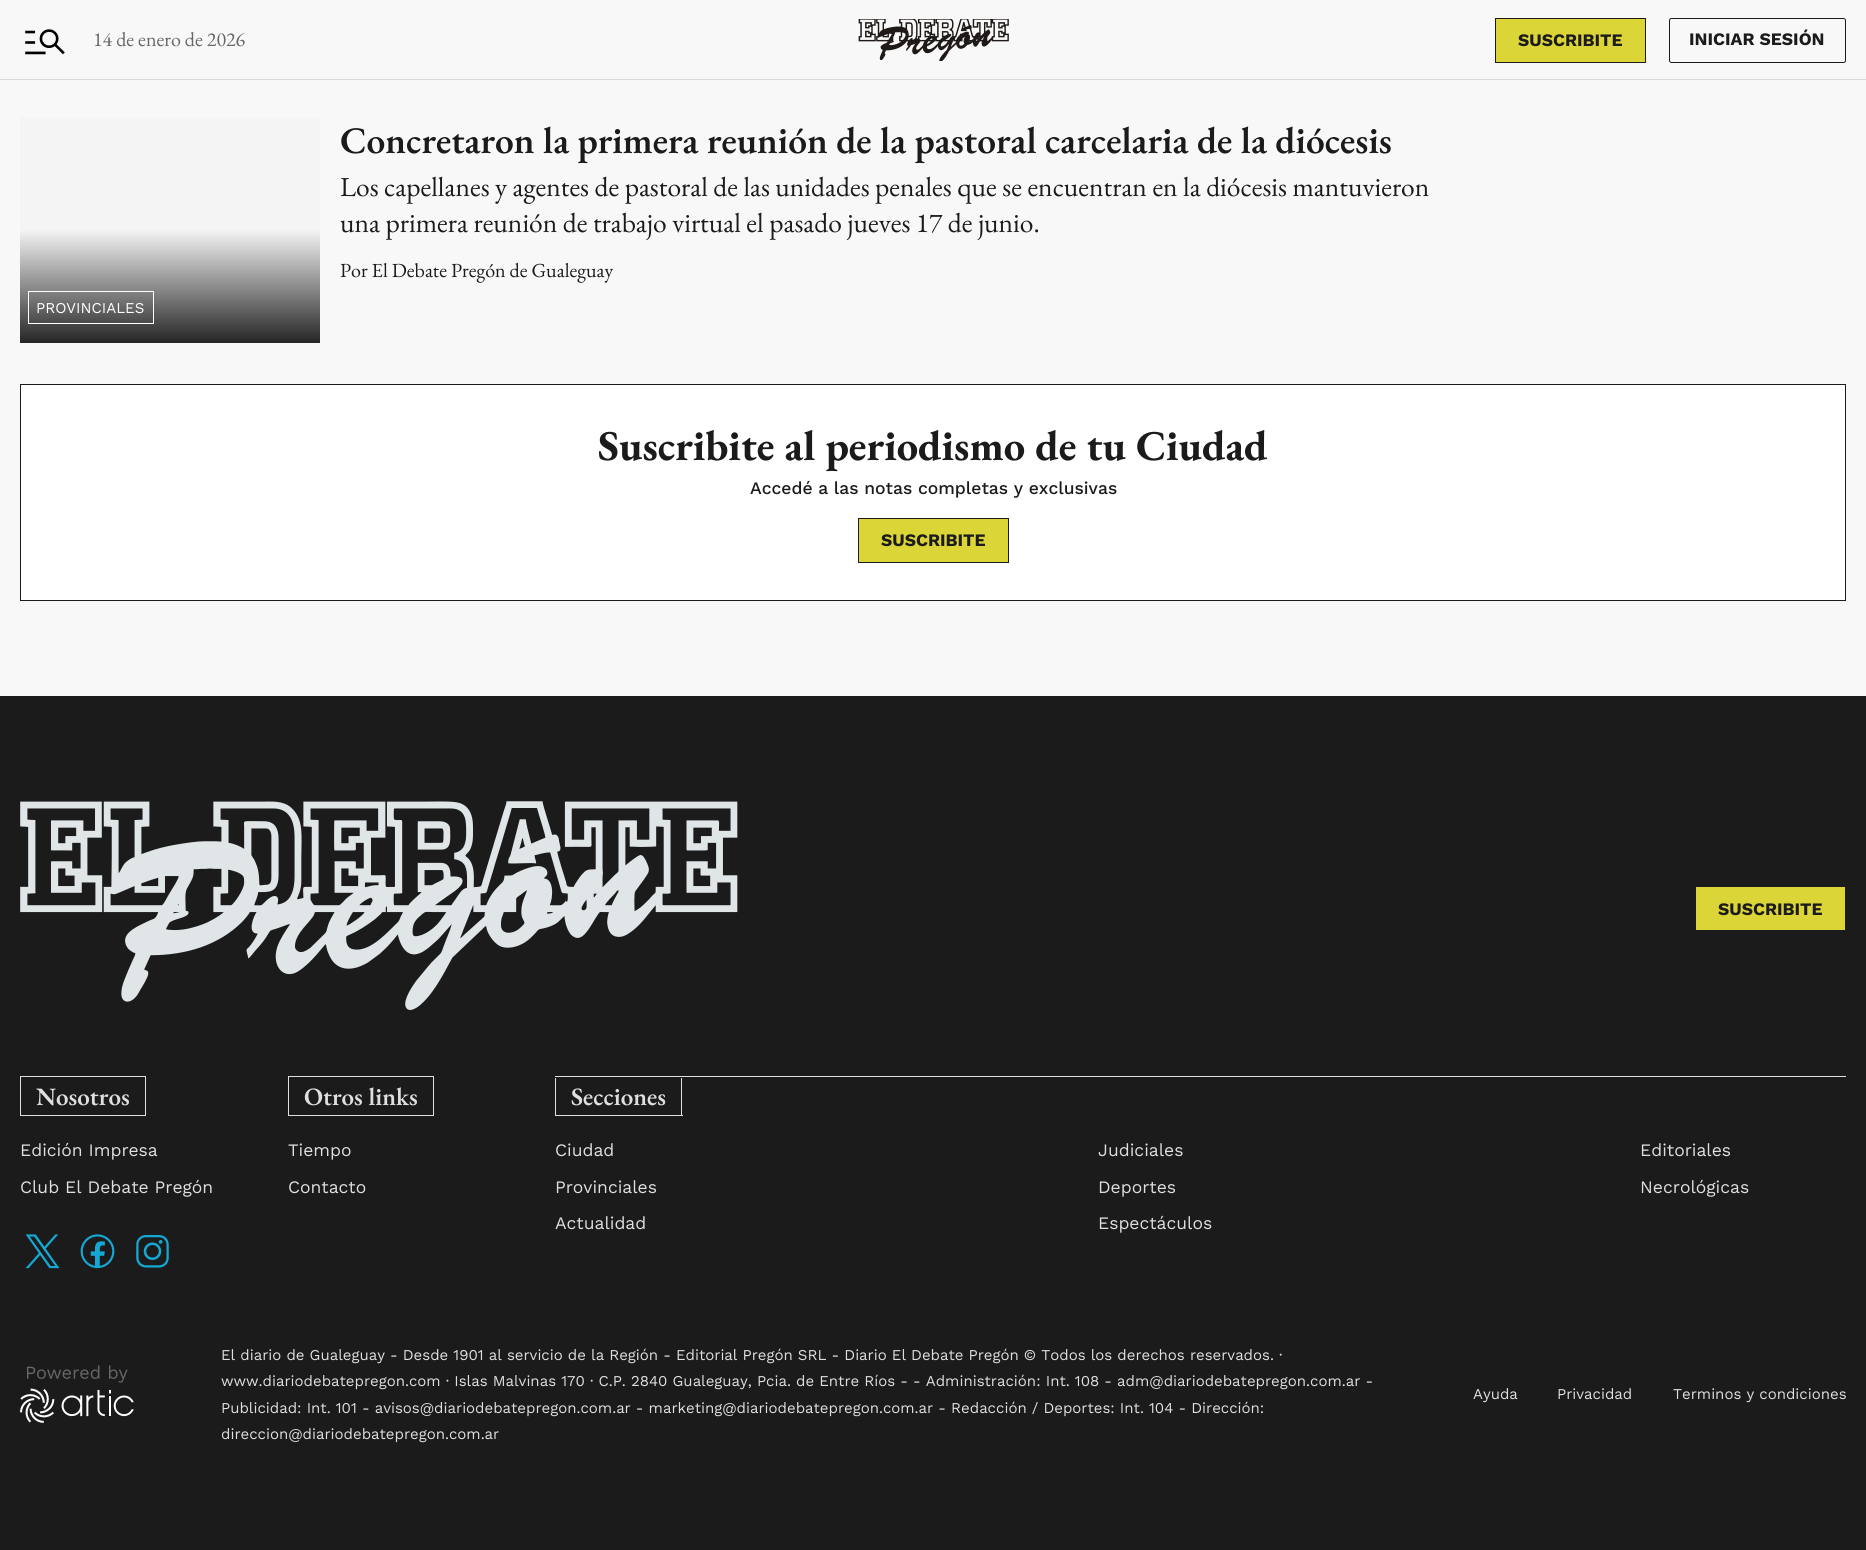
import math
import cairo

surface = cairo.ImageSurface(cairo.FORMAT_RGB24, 1866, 1550)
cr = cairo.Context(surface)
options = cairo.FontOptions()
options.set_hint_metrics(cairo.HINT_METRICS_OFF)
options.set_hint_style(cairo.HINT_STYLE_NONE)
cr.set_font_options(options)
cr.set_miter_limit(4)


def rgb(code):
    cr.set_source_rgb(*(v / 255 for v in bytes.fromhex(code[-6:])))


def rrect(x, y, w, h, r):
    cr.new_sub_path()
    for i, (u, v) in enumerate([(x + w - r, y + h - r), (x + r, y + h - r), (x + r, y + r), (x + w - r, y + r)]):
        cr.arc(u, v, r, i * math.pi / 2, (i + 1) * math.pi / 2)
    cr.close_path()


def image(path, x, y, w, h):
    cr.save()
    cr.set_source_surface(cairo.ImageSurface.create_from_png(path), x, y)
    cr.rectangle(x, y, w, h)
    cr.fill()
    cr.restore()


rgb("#f8f8f8")
cr.paint()
rgb("#dadada")
cr.rectangle(0, 79, 1866, 1)
cr.fill()
image("img/1.png", 25, 29, 40, 26)
image("img/2.png", 858, 19, 151, 42)
rgb("#dbd537")
cr.rectangle(1495.5, 18.5, 150, 44)
cr.fill_preserve()
rgb("#1b1b1b")
cr.set_line_width(1)
cr.stroke()
rrect(1669.5, 18.5, 176, 44, 2)
cr.stroke()
rgb("#f4f4f4")
cr.rectangle(20, 118, 300, 112)
cr.fill()
gradient = cairo.LinearGradient(170, 230, 170, 343)
gradient.add_color_stop_rgba(0, 0.957, 0.957, 0.957, 1)
gradient.add_color_stop_rgba(1, 0.145, 0.145, 0.145, 1)
cr.set_source(gradient)
cr.rectangle(20, 230, 300, 113)
cr.fill()
cr.rectangle(28.5, 291.5, 125, 32)
rgb("#ffffff")
cr.stroke()
cr.rectangle(20.5, 384.5, 1825, 216)
cr.fill_preserve()
rgb("#1b1b1b")
cr.stroke()
rgb("#dbd537")
cr.rectangle(858.5, 518.5, 150, 44)
cr.fill_preserve()
rgb("#1b1b1b")
cr.stroke()
cr.rectangle(0, 696, 1866, 854)
cr.fill()
image("img/3.png", 20, 801, 718, 209)
rgb("#dbd537")
cr.rectangle(1696, 887, 149, 43)
cr.fill()
cr.rectangle(20.5, 1076.5, 125, 39)
rgb("#dfdfdf")
cr.stroke()
image("img/4.png", 25, 1234, 35, 35)
image("img/5.png", 80, 1234, 35, 35)
image("img/6.png", 136, 1235, 33, 33)
cr.rectangle(288.5, 1076.5, 145, 39)
cr.stroke()
for x, y, w, h, color in [
    (555, 1076, 1291, 1, "#dfdfdf"),
    (681, 1078, 1, 38, "#dfdfdf"),
    (555, 1115, 128, 1, "#dfdfdf"),
    (555, 1078, 1, 38, "#dfdfdf"),
]:
    rgb(color)
    cr.rectangle(x, y, w, h)
    cr.fill()
image("img/7.png", 20, 1365, 114, 58)
cr.select_font_face("EB Garamond")
cr.set_font_size(20)
rgb("#676767")
cr.move_to(93, 46)
cr.show_text("14 de enero de 2026")
cr.select_font_face("Work Sans", cairo.FONT_SLANT_NORMAL, cairo.FONT_WEIGHT_BOLD)
cr.set_font_size(17.5)
rgb("#1b1b1b")
cr.move_to(1518, 46)
cr.show_text("SUSCRIBITE")
cr.move_to(1689, 45)
cr.show_text("INICIAR SESIÓN")
cr.select_font_face("EB Garamond SemiBold")
cr.set_font_size(37.5)
cr.move_to(340, 153)
cr.show_text("Concretaron la primera reunión de la pastoral carcelaria de la diócesis")
cr.select_font_face("EB Garamond")
cr.set_font_size(27.5)
cr.move_to(340, 196)
cr.show_text("Los capellanes y agentes de pastoral de las unidades penales que se encuentran en la diócesis mantuvieron")
cr.move_to(340, 232)
cr.show_text("una primera reunión de trabajo virtual el pasado jueves 17 de junio.")
cr.set_font_size(20)
cr.move_to(340, 277)
cr.show_text("Por El Debate Pregón de Gualeguay")
cr.select_font_face("Work Sans")
cr.set_font_size(15)
rgb("#ffffff")
cr.move_to(36, 313)
cr.show_text("PROVINCIALES")
cr.select_font_face("EB Garamond", cairo.FONT_SLANT_NORMAL, cairo.FONT_WEIGHT_BOLD)
cr.set_font_size(42.5)
rgb("#1b1b1b")
cr.move_to(598, 460)
cr.show_text("Suscribite al periodismo de tu Ciudad")
cr.select_font_face("Work Sans Medium")
cr.set_font_size(17.5)
cr.move_to(750, 494)
cr.show_text("Accedé a las notas completas y exclusivas")
cr.select_font_face("Work Sans", cairo.FONT_SLANT_NORMAL, cairo.FONT_WEIGHT_BOLD)
cr.move_to(881, 546)
cr.show_text("SUSCRIBITE")
cr.move_to(1718, 915)
cr.show_text("SUSCRIBITE")
cr.select_font_face("EB Garamond SemiBold")
cr.set_font_size(25)
rgb("#dfdfdf")
cr.move_to(36, 1105)
cr.show_text("Nosotros")
cr.select_font_face("Work Sans")
cr.set_font_size(17.5)
cr.move_to(20, 1156)
cr.show_text("Edición Impresa")
cr.move_to(20, 1193)
cr.show_text("Club El Debate Pregón")
cr.select_font_face("EB Garamond SemiBold")
cr.set_font_size(25)
cr.move_to(304, 1105)
cr.show_text("Otros links")
cr.select_font_face("Work Sans")
cr.set_font_size(17.5)
cr.move_to(288, 1156)
cr.show_text("Tiempo")
cr.move_to(288, 1193)
cr.show_text("Contacto")
cr.select_font_face("EB Garamond SemiBold")
cr.set_font_size(25)
cr.move_to(571, 1105)
cr.show_text("Secciones")
cr.select_font_face("Work Sans")
cr.set_font_size(17.5)
for x, y, s in [
    (555, 1156, "Ciudad"),
    (555, 1193, "Provinciales"),
    (555, 1229, "Actualidad"),
    (1098, 1156, "Judiciales"),
    (1098, 1193, "Deportes"),
    (1098, 1229, "Espectáculos"),
    (1640, 1156, "Editoriales"),
    (1640, 1193, "Necrológicas"),
]:
    cr.move_to(x, y)
    cr.show_text(s)
cr.set_font_size(15)
for x, y, s in [
    (221, 1360, "El diario de Gualeguay - Desde 1901 al servicio de la Región - Editorial Pregón SRL - Diario El Debate Pregón © Todos los derechos reservados. ·"),
    (221, 1386, "www.diariodebatepregon.com · Islas Malvinas 170 · C.P. 2840 Gualeguay, Pcia. de Entre Ríos - - Administración: Int. 108 - adm@diariodebatepregon.com.ar -"),
    (221, 1413, "Publicidad: Int. 101 - avisos@diariodebatepregon.com.ar - marketing@diariodebatepregon.com.ar - Redacción / Deportes: Int. 104 - Dirección:"),
    (221, 1439, "direccion@diariodebatepregon.com.ar"),
    (1473, 1399, "Ayuda"),
    (1557, 1399, "Privacidad"),
    (1673, 1399, "Terminos y condiciones"),
]:
    cr.move_to(x, y)
    cr.show_text(s)
surface.write_to_png("page.png")
